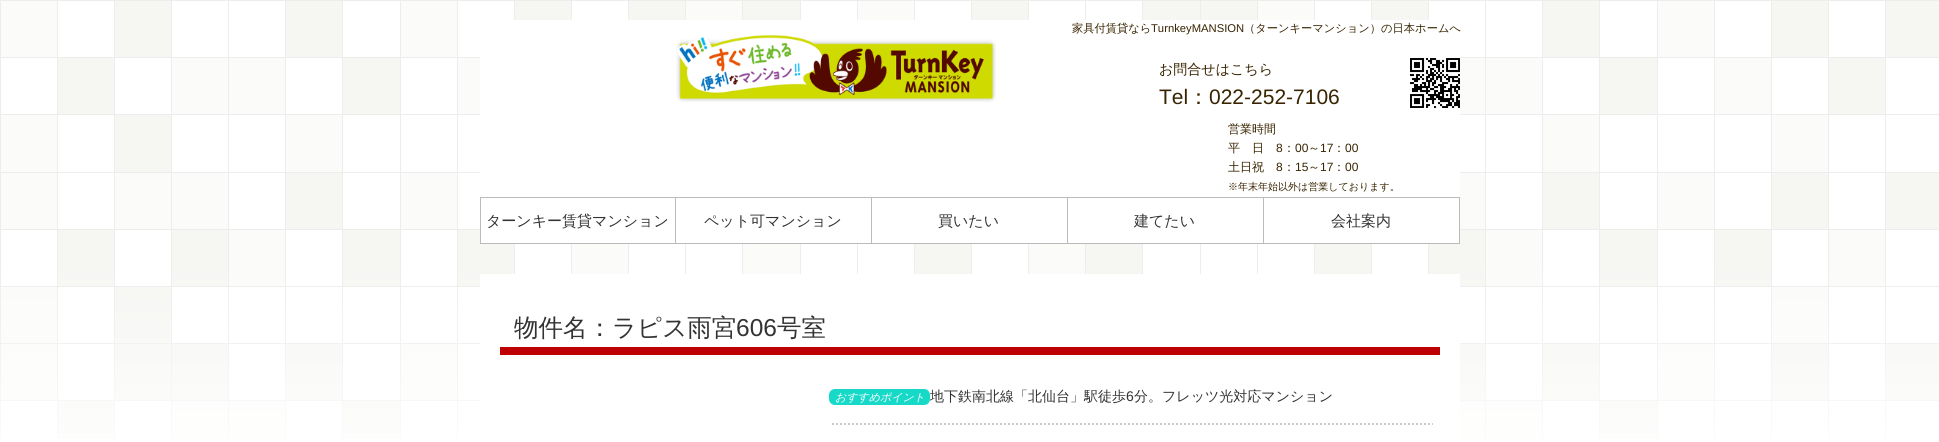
import math
import cairo

surface = cairo.ImageSurface(cairo.FORMAT_RGB24, 1939, 442)
cr = cairo.Context(surface)
options = cairo.FontOptions()
options.set_hint_metrics(cairo.HINT_METRICS_OFF)
options.set_hint_style(cairo.HINT_STYLE_NONE)
cr.set_font_options(options)
cr.set_miter_limit(4)


def rgb(code):
    cr.set_source_rgb(*(v / 255 for v in bytes.fromhex(code[-6:])))


def tracked(x, y, s, letter, word):
    cr.move_to(x, y)
    for ch in s:
        cr.show_text(ch)
        cr.rel_move_to(letter + word * (ch == ' '), 0)


def rrect(x, y, w, h, r):
    cr.new_sub_path()
    for i, (u, v) in enumerate([(x + w - r, y + h - r), (x + r, y + h - r), (x + r, y + r), (x + w - r, y + r)]):
        cr.arc(u, v, r, i * math.pi / 2, (i + 1) * math.pi / 2)
    cr.close_path()


def image(path, x, y, w, h):
    cr.save()
    cr.set_source_surface(cairo.ImageSurface.create_from_png(path), x, y)
    cr.rectangle(x, y, w, h)
    cr.fill()
    cr.restore()


rgb("#ffffff")
cr.paint()
image("img/1.png", 0, 0, 1939, 439)
rgb("#ffffff")
cr.rectangle(480, 20, 980, 223)
cr.fill()
image("img/2.png", 676, 34, 320, 68)
image("img/3.png", 1410, 58, 50, 50)
cr.rectangle(480.5, 197.5, 195, 46)
rgb("#bbbbbb")
cr.set_line_width(1)
cr.stroke()
for x, y, w, h, color in [
    (676, 197, 784, 1, "#bbbbbb"),
    (871, 197, 1, 47, "#bbbbbb"),
    (676, 243, 196, 1, "#bbbbbb"),
    (1067, 197, 1, 47, "#bbbbbb"),
    (872, 243, 196, 1, "#bbbbbb"),
    (1263, 197, 1, 47, "#bbbbbb"),
    (1068, 243, 196, 1, "#bbbbbb"),
    (1459, 197, 1, 47, "#bbbbbb"),
    (1264, 243, 196, 1, "#bbbbbb"),
    (480, 274, 980, 165, "#ffffff"),
    (500, 347, 940, 8, "#be0000"),
]:
    rgb(color)
    cr.rectangle(x, y, w, h)
    cr.fill()
rgb("#16d9c8")
rrect(829, 389, 101, 16, 6)
cr.fill()
cr.new_path()
cr.move_to(832, 424)
cr.line_to(1433, 424)
rgb("#cccccc")
cr.set_line_width(2)
cr.set_dash([2, 2])
cr.stroke()
cr.select_font_face("WenQuanYi Zen Hei Medium")
cr.set_font_size(11.25)
rgb("#382400")
cr.move_to(1072, 32)
cr.show_text("家具付賃貸なら")
cr.select_font_face("Liberation Sans")
cr.move_to(1151, 32)
cr.show_text("TurnkeyMANSION")
cr.select_font_face("WenQuanYi Zen Hei Medium")
cr.move_to(1244, 32)
cr.show_text("（ターンキーマンション）の日本ホームへ")
cr.set_font_size(14)
cr.move_to(1159, 74)
cr.show_text("お問合せはこちら")
cr.select_font_face("Liberation Sans")
cr.set_font_size(21)
cr.move_to(1159, 104)
cr.show_text("Tel")
cr.select_font_face("WenQuanYi Zen Hei Medium")
cr.move_to(1188, 104)
cr.show_text("：")
cr.select_font_face("Liberation Sans")
cr.move_to(1209, 104)
cr.show_text("022-252-7106")
cr.select_font_face("WenQuanYi Zen Hei Medium")
cr.set_font_size(12)
cr.move_to(1228, 133)
cr.show_text("営業時間")
tracked(1228, 152, "平日", 12, 0)
cr.select_font_face("Liberation Sans")
cr.move_to(1276, 152)
cr.show_text("8")
cr.select_font_face("WenQuanYi Zen Hei Medium")
cr.move_to(1283, 152)
cr.show_text("：")
cr.select_font_face("Liberation Sans")
cr.move_to(1295, 152)
cr.show_text("00")
cr.select_font_face("WenQuanYi Zen Hei Medium")
cr.move_to(1308, 152)
cr.show_text("～")
cr.select_font_face("Liberation Sans")
cr.move_to(1320, 152)
cr.show_text("17")
cr.select_font_face("WenQuanYi Zen Hei Medium")
cr.move_to(1333, 152)
cr.show_text("：")
cr.select_font_face("Liberation Sans")
cr.move_to(1345, 152)
cr.show_text("00")
cr.select_font_face("WenQuanYi Zen Hei Medium")
cr.move_to(1228, 171)
cr.show_text("土日祝")
cr.select_font_face("Liberation Sans")
cr.move_to(1276, 171)
cr.show_text("8")
cr.select_font_face("WenQuanYi Zen Hei Medium")
cr.move_to(1283, 171)
cr.show_text("：")
cr.select_font_face("Liberation Sans")
cr.move_to(1295, 171)
cr.show_text("15")
cr.select_font_face("WenQuanYi Zen Hei Medium")
cr.move_to(1308, 171)
cr.show_text("～")
cr.select_font_face("Liberation Sans")
cr.move_to(1320, 171)
cr.show_text("17")
cr.select_font_face("WenQuanYi Zen Hei Medium")
cr.move_to(1333, 171)
cr.show_text("：")
cr.select_font_face("Liberation Sans")
cr.move_to(1345, 171)
cr.show_text("00")
cr.select_font_face("WenQuanYi Zen Hei Medium")
cr.set_font_size(10)
cr.move_to(1228, 190)
cr.show_text("※年末年始以外は営業しております。")
cr.set_font_size(15)
rgb("#333333")
for x, y, s in [
    (486, 226, "ターンキー賃貸マンション"),
    (704, 226, "ペット可マンション"),
    (938, 226, "買いたい"),
    (1134, 226, "建てたい"),
    (1331, 226, "会社案内"),
]:
    cr.move_to(x, y)
    cr.show_text(s)
cr.set_font_size(24.5)
cr.move_to(514, 336)
cr.show_text("物件名：ラピス雨宮")
cr.select_font_face("Liberation Sans")
cr.move_to(736, 336)
cr.show_text("606")
cr.select_font_face("WenQuanYi Zen Hei Medium")
cr.move_to(777, 336)
cr.show_text("号室")
cr.select_font_face("WenQuanYi Zen Hei Medium", cairo.FONT_SLANT_ITALIC)
cr.set_font_size(11)
rgb("#ffffff")
cr.move_to(835, 401)
cr.show_text("おすすめポイント")
cr.select_font_face("WenQuanYi Zen Hei Medium")
cr.set_font_size(14)
rgb("#333333")
cr.move_to(930, 401)
cr.show_text("地下鉄南北線「北仙台」駅徒歩")
cr.select_font_face("Liberation Sans")
cr.move_to(1126, 401)
cr.show_text("6")
cr.select_font_face("WenQuanYi Zen Hei Medium")
cr.move_to(1134, 401)
cr.show_text("分。フレッツ光対応マンション")
surface.write_to_png("page.png")
